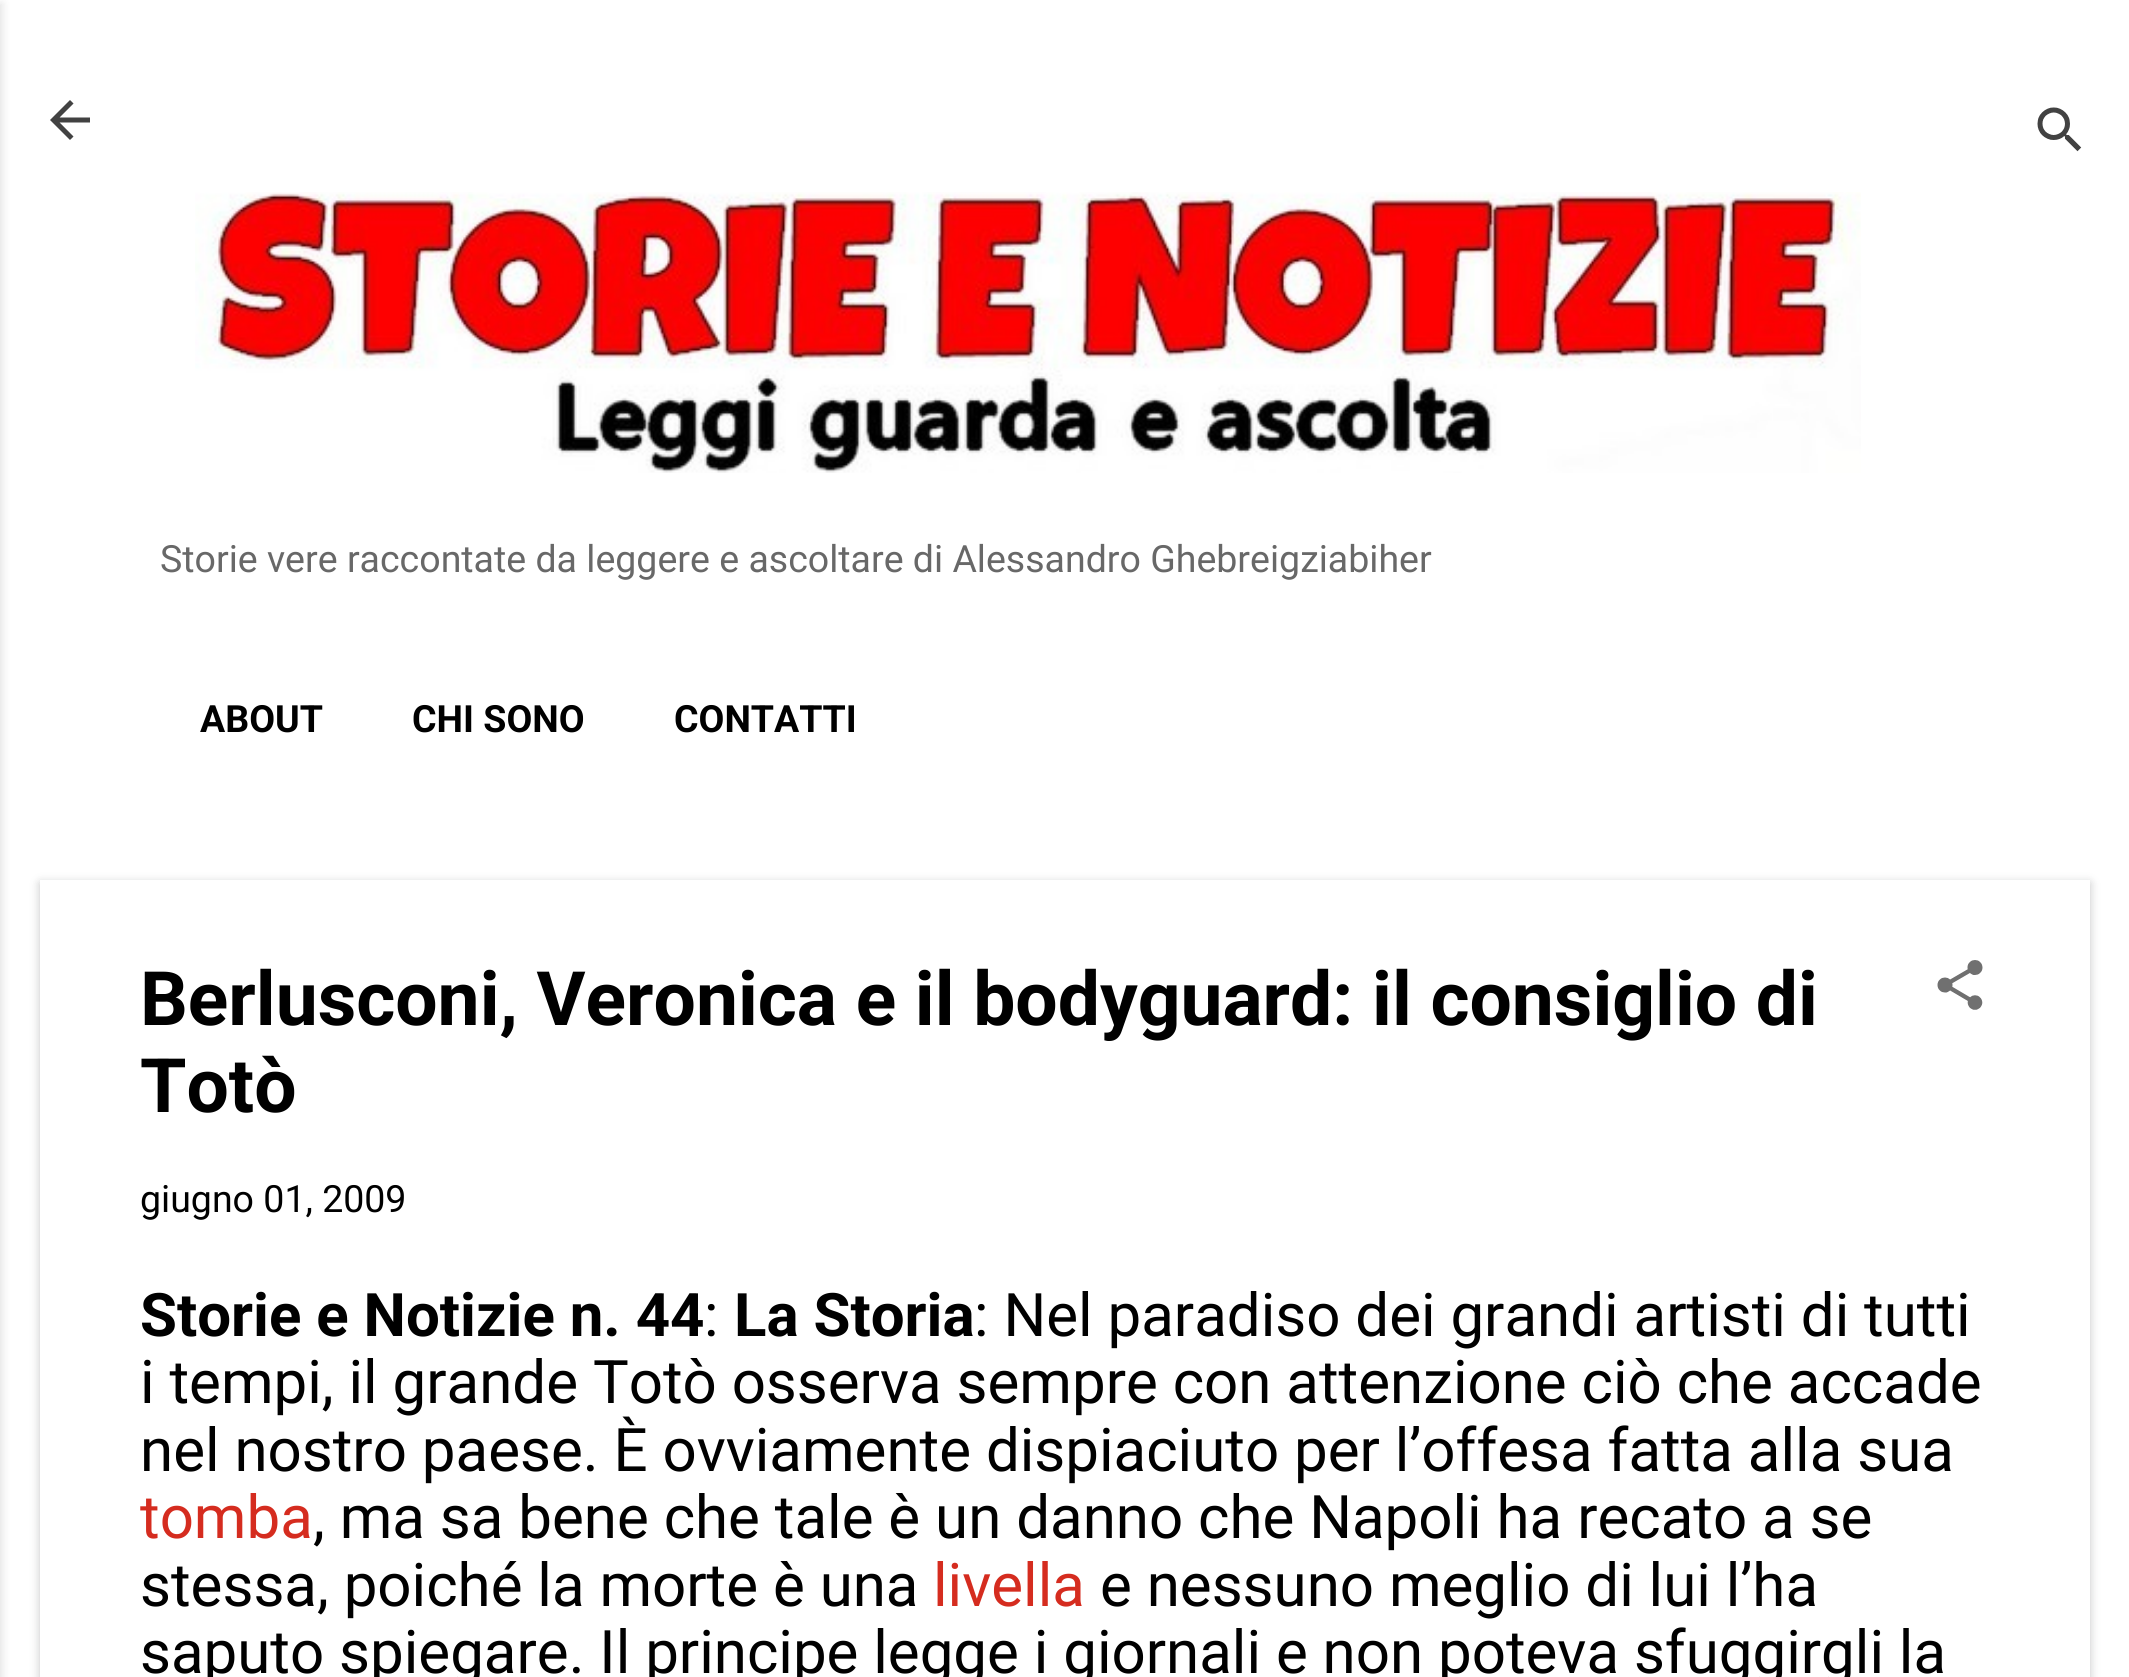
import math
import cairo

surface = cairo.ImageSurface(cairo.FORMAT_RGB24, 2129, 1677)
cr = cairo.Context(surface)
options = cairo.FontOptions()
options.set_hint_metrics(cairo.HINT_METRICS_OFF)
options.set_hint_style(cairo.HINT_STYLE_NONE)
cr.set_font_options(options)
cr.set_miter_limit(4)


def rgb(code):
    cr.set_source_rgb(*(v / 255 for v in bytes.fromhex(code[-6:])))


def rrect(x, y, w, h, r):
    cr.new_sub_path()
    for i, (u, v) in enumerate([(x + w - r, y + h - r), (x + r, y + h - r), (x + r, y + r), (x + w - r, y + r)]):
        cr.arc(u, v, r, i * math.pi / 2, (i + 1) * math.pi / 2)
    cr.close_path()


def soft_shadow(x, y, w, h, r, blur, alpha):
    cr.push_group_with_content(cairo.CONTENT_ALPHA)
    cr.set_operator(cairo.OPERATOR_SOURCE)
    for i in range(15, -16, -2):
        e = blur * i / 6
        if min(w, h) + 2 * e > 0:
            cr.set_source_rgba(0, 0, 0, alpha * math.erfc((i - 1) / 8.5) / 2)
            rrect(x - e, y - e, w + 2 * e, h + 2 * e, max(0, min(r + e + blur * .6, min(w, h) / 2 + e)))
            cr.fill()
    cr.mask(cr.pop_group())


def image(path, x, y, w, h):
    cr.save()
    cr.set_source_surface(cairo.ImageSurface.create_from_png(path), x, y)
    cr.rectangle(x, y, w, h)
    cr.fill()
    cr.restore()


rgb("#ffffff")
cr.paint()
rgb("#000000")
soft_shadow(-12, 3, 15, 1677, 0, 4, 0.1)
image("img/1.png", 50, 100, 40, 40)
image("img/2.png", 2037, 107, 45, 45)
image("img/3.png", 195, 192, 1666, 281)
cr.save()
cr.set_fill_rule(cairo.FILL_RULE_EVEN_ODD)
cr.new_path()
cr.move_to(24, 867)
cr.line_to(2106, 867)
cr.line_to(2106, 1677)
cr.line_to(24, 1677)
cr.close_path()
cr.move_to(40, 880)
cr.line_to(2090, 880)
cr.line_to(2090, 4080)
cr.line_to(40, 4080)
cr.close_path()
cr.clip()
rgb("#3c4043")
soft_shadow(40, 883, 2050, 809, 0, 5, 0.3)
cr.restore()
image("img/4.png", 1937, 960, 46, 50)
cr.select_font_face("Roboto")
cr.set_font_size(37.5)
rgb("#686868")
cr.move_to(160, 572)
cr.show_text("Storie vere raccontate da leggere e ascoltare di Alessandro Ghebreigziabiher")
cr.select_font_face("Roboto", cairo.FONT_SLANT_NORMAL, cairo.FONT_WEIGHT_BOLD)
rgb("#000000")
for x, y, s in [
    (200, 732, "ABOUT"),
    (412, 732, "CHI SONO"),
    (674, 732, "CONTATTI"),
]:
    cr.move_to(x, y)
    cr.show_text(s)
cr.set_font_size(75)
cr.move_to(140, 1025)
cr.show_text("Berlusconi, Veronica e il bodyguard: il consiglio di")
cr.move_to(140, 1112)
cr.show_text("Totò")
cr.select_font_face("Roboto")
cr.set_font_size(37.5)
cr.move_to(140, 1212)
cr.show_text("giugno 01, 2009")
cr.select_font_face("Roboto", cairo.FONT_SLANT_NORMAL, cairo.FONT_WEIGHT_BOLD)
cr.set_font_size(60)
cr.move_to(140, 1336)
cr.show_text("Storie e Notizie n. 44")
cr.select_font_face("Roboto")
cr.move_to(704, 1336)
cr.show_text(":")
cr.select_font_face("Roboto", cairo.FONT_SLANT_NORMAL, cairo.FONT_WEIGHT_BOLD)
cr.move_to(734, 1336)
cr.show_text("La Storia")
cr.select_font_face("Roboto")
for x, y, s in [
    (974, 1336, ": Nel paradiso dei grandi artisti di tutti"),
    (140, 1403, "i tempi, il grande Totò osserva sempre con attenzione ciò che accade"),
    (140, 1471, "nel nostro paese. È ovviamente dispiaciuto per l’offesa fatta alla sua"),
]:
    cr.move_to(x, y)
    cr.show_text(s)
rgb("#d52c1f")
cr.move_to(140, 1538)
cr.show_text("tomba")
rgb("#000000")
cr.move_to(313, 1538)
cr.show_text(", ma sa bene che tale è un danno che Napoli ha recato a se")
cr.move_to(140, 1606)
cr.show_text("stessa, poiché la morte è una")
rgb("#d52c1f")
cr.move_to(933, 1606)
cr.show_text("livella")
rgb("#000000")
cr.move_to(1100, 1606)
cr.show_text("e nessuno meglio di lui l’ha")
cr.move_to(140, 1673)
cr.show_text("saputo spiegare. Il principe legge i giornali e non poteva sfuggirgli la")
surface.write_to_png("page.png")
